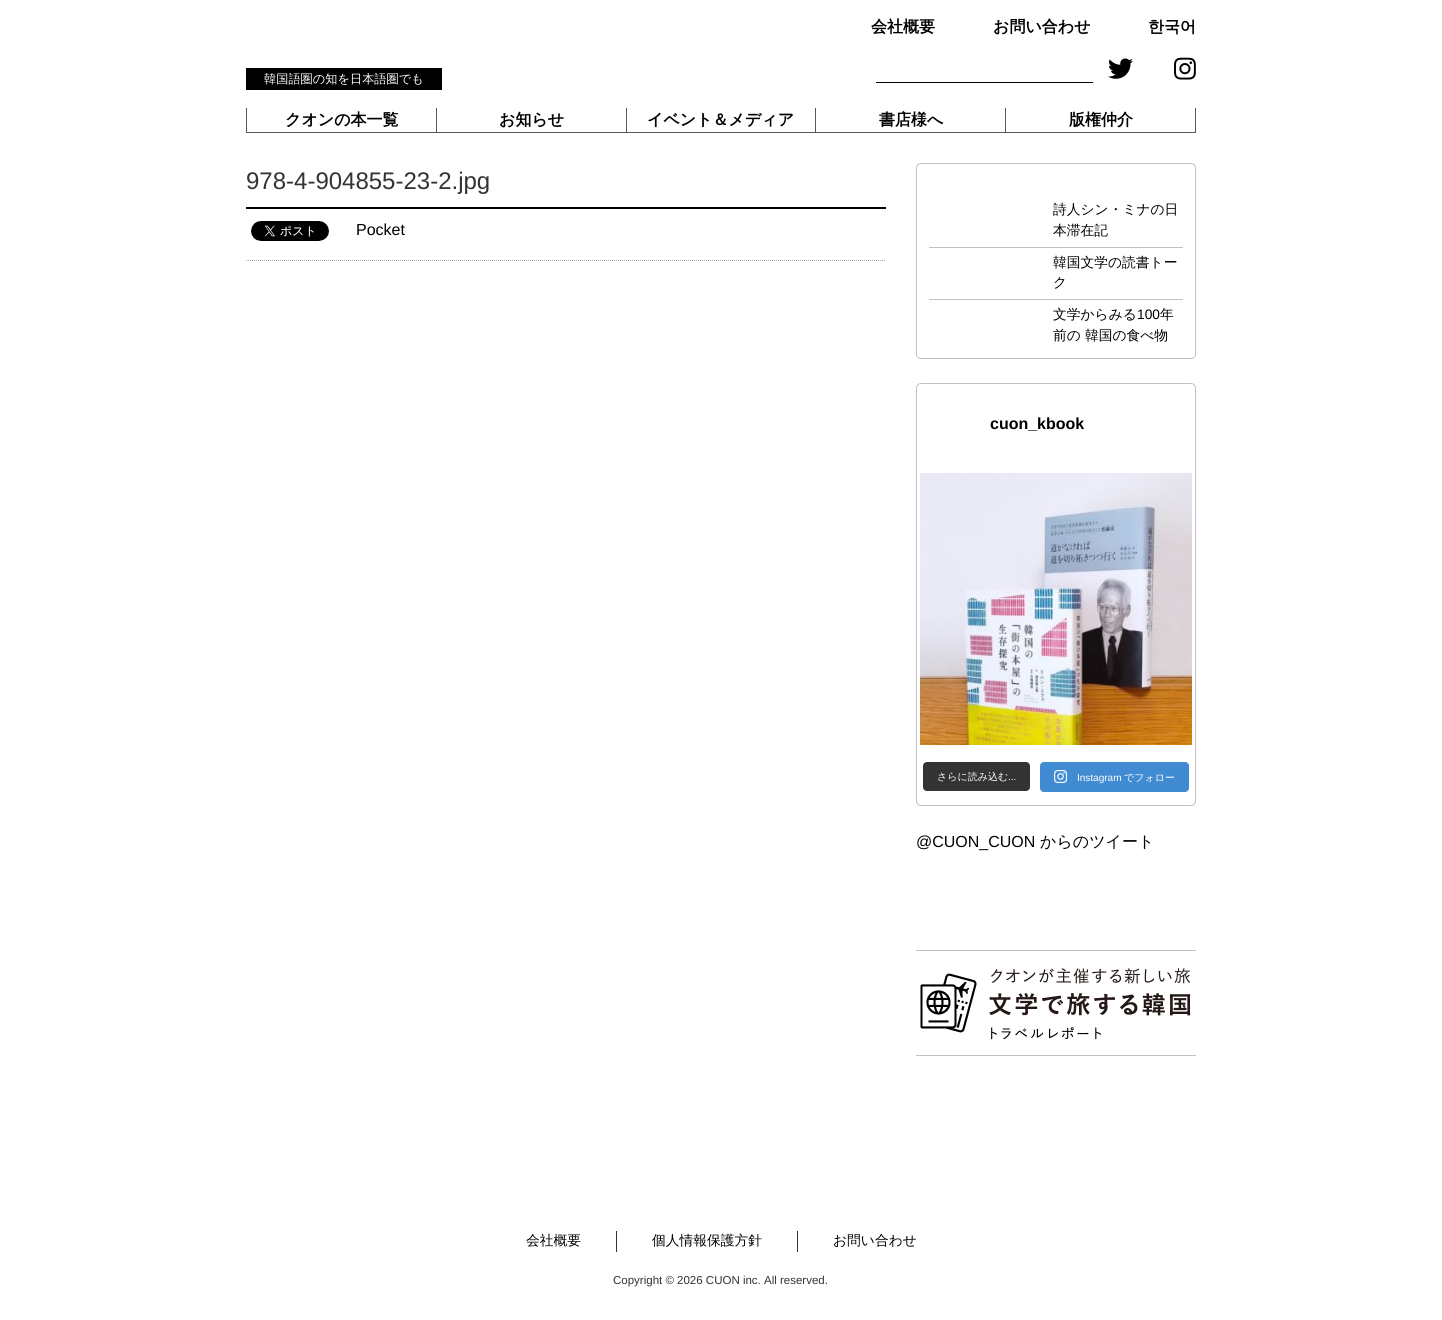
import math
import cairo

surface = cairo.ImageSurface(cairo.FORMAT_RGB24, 1442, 1320)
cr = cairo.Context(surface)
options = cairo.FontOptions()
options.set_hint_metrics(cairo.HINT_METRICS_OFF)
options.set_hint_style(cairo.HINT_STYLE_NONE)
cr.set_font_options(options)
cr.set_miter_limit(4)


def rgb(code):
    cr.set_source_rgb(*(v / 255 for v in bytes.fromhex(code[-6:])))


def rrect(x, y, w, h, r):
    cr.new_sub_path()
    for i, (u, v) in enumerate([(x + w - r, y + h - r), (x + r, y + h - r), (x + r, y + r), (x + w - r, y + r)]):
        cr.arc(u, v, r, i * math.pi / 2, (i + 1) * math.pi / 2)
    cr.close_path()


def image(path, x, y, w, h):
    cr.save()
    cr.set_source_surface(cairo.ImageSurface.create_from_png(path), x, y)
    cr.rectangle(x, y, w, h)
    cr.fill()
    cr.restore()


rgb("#ffffff")
cr.paint()
image("img/1.png", 1108, 58, 25, 21)
image("img/2.png", 1174, 57, 22, 23)
for x, y, w, h, color in [
    (876, 82, 217, 1, "#000000"),
    (246, 68, 196, 22, "#000000"),
    (246, 132, 950, 1, "#595757"),
    (246, 108, 1, 25, "#595757"),
    (436, 108, 1, 24, "#595757"),
    (626, 108, 1, 24, "#595757"),
    (815, 108, 1, 24, "#595757"),
    (1005, 108, 1, 24, "#595757"),
    (1195, 108, 1, 24, "#595757"),
    (246, 207, 640, 2, "#000000"),
]:
    rgb(color)
    cr.rectangle(x, y, w, h)
    cr.fill()
cr.new_path()
cr.move_to(246, 260.5)
cr.line_to(886, 260.5)
rgb("#aaaaaa")
cr.set_line_width(1)
cr.set_dash([1, 1])
cr.stroke()
image("img/3.png", 251, 221, 78, 20)
rrect(916.5, 163.5, 279, 195, 4.5)
rgb("#c2c2c2")
cr.set_dash([])
cr.stroke()
cr.rectangle(929, 247, 254, 1)
cr.fill()
cr.rectangle(929, 299, 254, 1)
cr.fill()
rrect(916.5, 383.5, 279, 422, 4.5)
cr.stroke()
image("img/4.png", 920, 473, 272, 272)
rgb("#333333")
rrect(923, 762, 107, 29, 4)
cr.fill()
rgb("#408bd1")
rrect(1040, 762, 149, 30, 4)
cr.fill()
image("img/5.png", 1054, 770, 13, 13)
image("img/6.png", 916, 950, 280, 106)
rgb("#333333")
cr.rectangle(616, 1231, 1, 21)
cr.fill()
cr.rectangle(797, 1231, 1, 21)
cr.fill()
cr.select_font_face("WenQuanYi Zen Hei", cairo.FONT_SLANT_NORMAL, cairo.FONT_WEIGHT_BOLD)
cr.set_font_size(16)
rgb("#000000")
for x, y, s in [
    (871, 32, "会社概要"),
    (993, 32, "お問い合わせ"),
    (1148, 32, "한국어"),
]:
    cr.move_to(x, y)
    cr.show_text(s)
cr.select_font_face("WenQuanYi Zen Hei Medium")
cr.set_font_size(12.2)
rgb("#ffffff")
cr.move_to(264, 83)
cr.show_text("韓国語圏の知を日本語圏でも")
cr.select_font_face("WenQuanYi Zen Hei", cairo.FONT_SLANT_NORMAL, cairo.FONT_WEIGHT_BOLD)
cr.set_font_size(16)
rgb("#000000")
for x, y, s in [
    (285, 125, "クオンの本一覧"),
    (499, 125, "お知らせ"),
    (647, 125, "イベント＆メディア"),
    (879, 125, "書店様へ"),
    (1069, 125, "版権仲介"),
]:
    cr.move_to(x, y)
    cr.show_text(s)
cr.select_font_face("Liberation Sans")
cr.set_font_size(24)
rgb("#333333")
cr.move_to(246, 189)
cr.show_text("978-4-904855-23-2.jpg")
cr.set_font_size(16)
rgb("#000000")
cr.move_to(356, 235)
cr.show_text("Pocket")
cr.select_font_face("WenQuanYi Zen Hei Medium")
cr.set_font_size(13.75)
for x, y, s in [
    (1053, 214, "詩人シン・ミナの日"),
    (1053, 235, "本滞在記"),
    (1053, 267, "韓国文学の読書トー"),
    (1053, 287, "ク"),
    (1053, 319, "文学からみる"),
]:
    cr.move_to(x, y)
    cr.show_text(s)
cr.select_font_face("Liberation Sans")
cr.move_to(1137, 319)
cr.show_text("100")
cr.select_font_face("WenQuanYi Zen Hei Medium")
cr.move_to(1160, 319)
cr.show_text("年")
cr.move_to(1053, 340)
cr.show_text("前の 韓国の食べ物")
cr.select_font_face("Liberation Sans", cairo.FONT_SLANT_NORMAL, cairo.FONT_WEIGHT_BOLD)
cr.set_font_size(16)
cr.move_to(990, 429)
cr.show_text("cuon_kbook")
cr.select_font_face("WenQuanYi Zen Hei Medium")
cr.set_font_size(10)
rgb("#ffffff")
cr.move_to(937, 780)
cr.show_text("さらに読み込む")
cr.select_font_face("Liberation Sans")
cr.move_to(1008, 780)
cr.show_text("...")
cr.move_to(1077, 781)
cr.show_text("Instagram")
cr.select_font_face("WenQuanYi Zen Hei Medium")
cr.move_to(1124, 781)
cr.show_text("でフォロー")
cr.select_font_face("Liberation Sans")
cr.set_font_size(16)
rgb("#000000")
cr.move_to(916, 847)
cr.show_text("@CUON_CUON")
cr.select_font_face("WenQuanYi Zen Hei Medium")
cr.move_to(1040, 847)
cr.show_text("からのツイート")
cr.set_font_size(13.75)
for x, y, s in [
    (526, 1245, "会社概要"),
    (652, 1245, "個人情報保護方針"),
    (833, 1245, "お問い合わせ"),
]:
    cr.move_to(x, y)
    cr.show_text(s)
cr.select_font_face("Liberation Sans")
cr.set_font_size(11.5)
rgb("#333333")
cr.move_to(613, 1284)
cr.show_text("Copyright © 2026 CUON inc. All reserved.")
surface.write_to_png("page.png")
